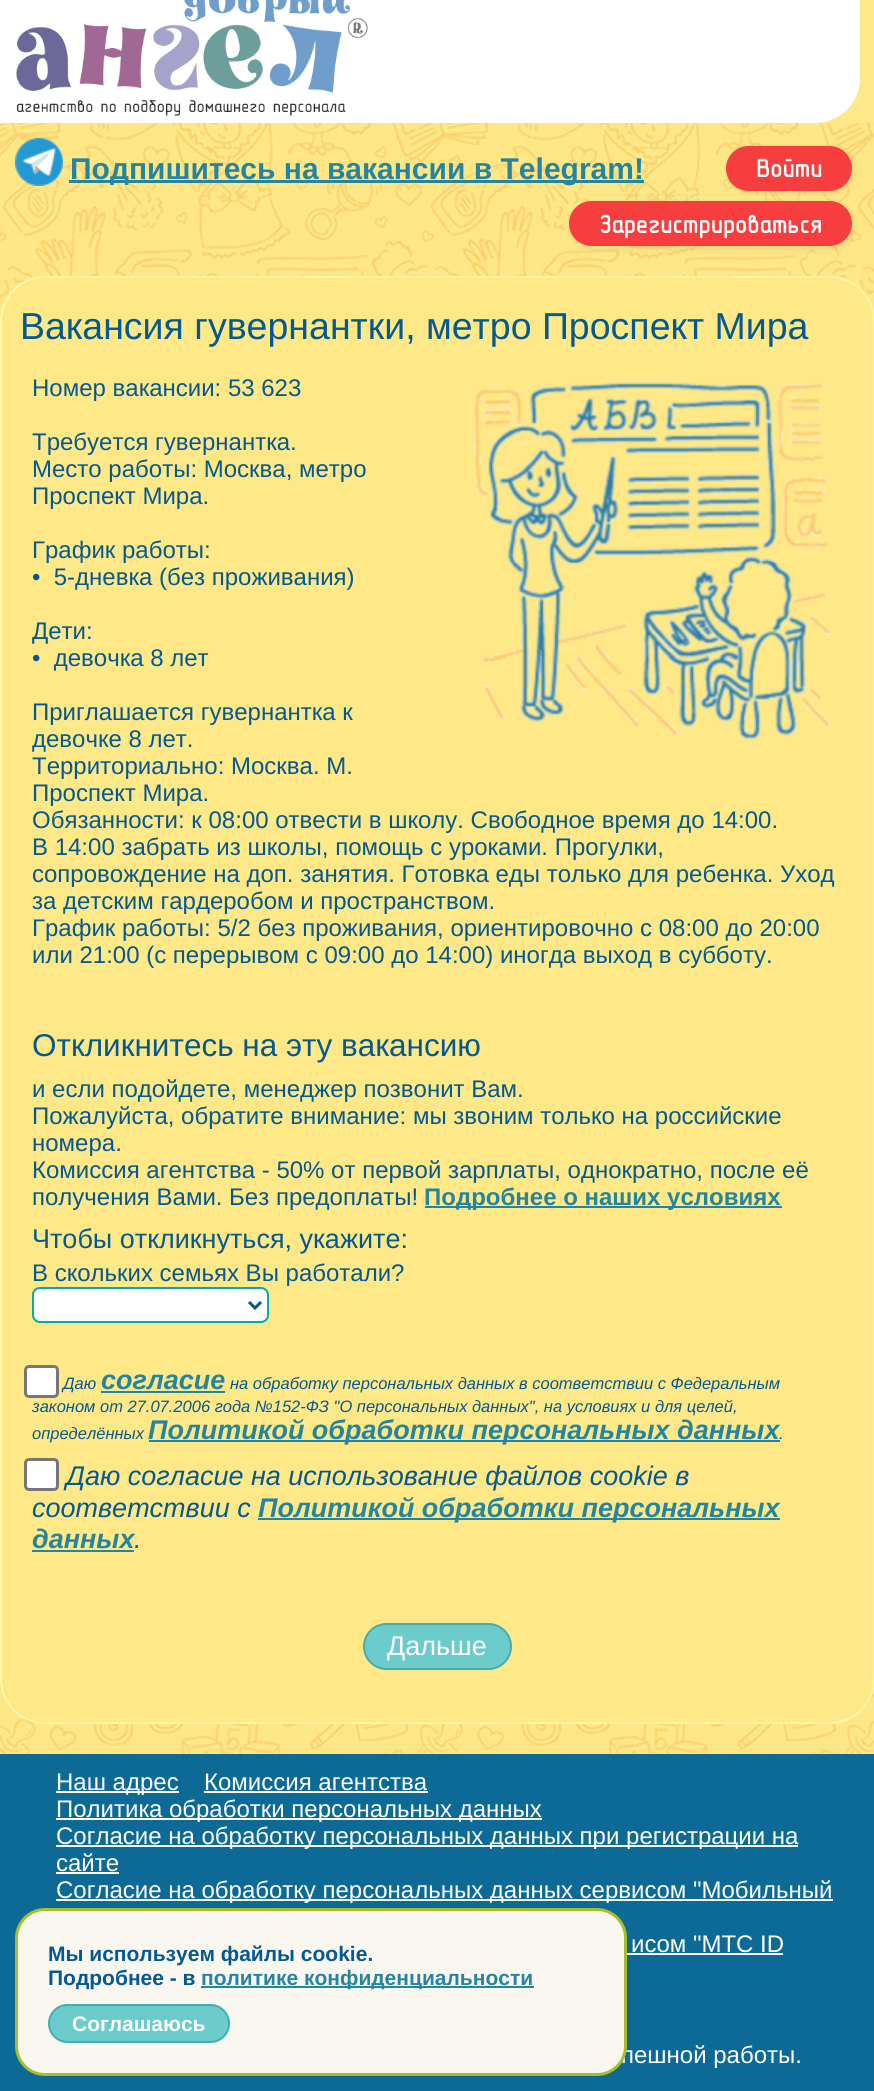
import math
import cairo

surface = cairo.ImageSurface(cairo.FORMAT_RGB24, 874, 2091)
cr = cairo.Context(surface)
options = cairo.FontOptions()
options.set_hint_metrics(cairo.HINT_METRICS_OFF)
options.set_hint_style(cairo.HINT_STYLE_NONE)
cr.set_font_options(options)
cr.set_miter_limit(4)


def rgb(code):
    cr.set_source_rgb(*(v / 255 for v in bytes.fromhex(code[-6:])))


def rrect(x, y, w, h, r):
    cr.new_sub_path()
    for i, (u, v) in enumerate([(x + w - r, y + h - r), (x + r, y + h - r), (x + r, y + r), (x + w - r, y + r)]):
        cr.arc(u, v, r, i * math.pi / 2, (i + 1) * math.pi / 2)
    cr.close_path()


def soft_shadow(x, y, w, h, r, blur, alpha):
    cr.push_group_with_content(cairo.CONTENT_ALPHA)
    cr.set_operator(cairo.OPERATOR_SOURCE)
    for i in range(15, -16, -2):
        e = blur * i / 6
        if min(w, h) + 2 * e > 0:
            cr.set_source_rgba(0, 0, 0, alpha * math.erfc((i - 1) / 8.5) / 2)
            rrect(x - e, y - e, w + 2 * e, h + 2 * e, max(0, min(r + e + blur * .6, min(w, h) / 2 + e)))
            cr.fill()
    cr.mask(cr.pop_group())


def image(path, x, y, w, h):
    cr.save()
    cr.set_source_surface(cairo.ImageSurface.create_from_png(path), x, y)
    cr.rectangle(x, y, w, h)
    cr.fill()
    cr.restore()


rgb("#ffe889")
cr.paint()
rgb("#ffffff")
cr.new_path()
cr.move_to(0, -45)
cr.line_to(815, -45)
cr.curve_to(840, -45, 860, -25, 860, 0)
cr.line_to(860, 78)
cr.curve_to(860, 103, 840, 123, 815, 123)
cr.line_to(0, 123)
cr.close_path()
cr.fill()
image("img/1.png", 16, 0, 352, 116)
image("img/2.png", 0, 123, 874, 1631)
image("img/3.png", 15, 138, 48, 48)
rgb("#2485a2")
cr.rectangle(69, 180, 575, 3)
cr.fill()
rgb("#000000")
soft_shadow(725, 144, 132, 51, 25.5, 1, 0.04)
rgb("#f63e3e")
rrect(726, 146, 126, 45, 22.5)
cr.fill()
rgb("#000000")
soft_shadow(567, 200, 290, 51, 25.5, 1, 0.04)
rgb("#f63e3e")
rrect(569, 201, 283, 45, 22.5)
cr.fill()
rgb("#ffe888")
rrect(1, 277, 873, 1446, 44)
cr.fill_preserve()
rgb("#fff8a8")
cr.stroke()
image("img/4.png", 473, 382, 359, 359)
rgb("#2485a2")
cr.rectangle(425, 1206, 357, 2)
cr.fill()
rgb("#ffffff")
rrect(33, 1288, 235, 34, 7)
cr.fill_preserve()
rgb("#00abb1")
cr.stroke()
cr.new_path()
cr.move_to(249, 1302)
cr.line_to(255, 1308)
cr.line_to(261, 1302)
rgb("#035992")
cr.set_line_width(3)
cr.stroke()
rgb("#ffffff")
rrect(25.5, 1366.5, 32, 30, 3.5)
cr.fill_preserve()
rgb("#767676")
cr.stroke()
rgb("#2485a2")
cr.rectangle(101, 1391, 124, 2)
cr.fill()
cr.rectangle(149, 1440, 631, 2)
cr.fill()
rgb("#ffffff")
rrect(25.5, 1459.5, 32, 30, 3.5)
cr.fill_preserve()
rgb("#767676")
cr.stroke()
rgb("#2485a2")
cr.rectangle(258, 1518, 522, 2)
cr.fill()
cr.rectangle(32, 1550, 102, 2)
cr.fill()
rgb("#6ccbcb")
rrect(364, 1624, 147, 45, 22.5)
cr.fill_preserve()
rgb("#41afaf")
cr.set_line_width(2)
cr.stroke()
for x, y, w, h, color in [
    (0, 1754, 874, 337, "#0d6a97"),
    (56, 1791, 123, 2, "#ffffff"),
    (204, 1791, 224, 2, "#ffffff"),
    (56, 1818, 486, 2, "#ffffff"),
    (56, 1845, 742, 2, "#ffffff"),
    (56, 1872, 63, 2, "#ffffff"),
    (56, 1899, 777, 2, "#ffffff"),
    (627, 1953, 156, 2, "#ffffff"),
]:
    rgb(color)
    cr.rectangle(x, y, w, h)
    cr.fill()
cr.select_font_face("Liberation Sans", cairo.FONT_SLANT_NORMAL, cairo.FONT_WEIGHT_BOLD)
cr.set_font_size(30)
rgb("#2485a2")
cr.move_to(70, 179)
cr.show_text("Подпишитесь на вакансии в Telegram!")
cr.select_font_face("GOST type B", cairo.FONT_SLANT_NORMAL, cairo.FONT_WEIGHT_BOLD)
cr.set_font_size(25.5)
rgb("#ffffff")
cr.move_to(756, 177)
cr.show_text("Войти")
cr.move_to(599, 233)
cr.show_text("Зарегистрироваться")
cr.select_font_face("Liberation Sans")
cr.set_font_size(37.5)
rgb("#035992")
cr.move_to(20, 339)
cr.show_text("Вакансия гувернантки, метро Проспект Мира")
cr.set_font_size(24)
for x, y, s in [
    (32, 396, "Номер вакансии: 53 623"),
    (32, 450, "Требуется гувернантка."),
    (32, 477, "Место работы: Москва, метро"),
    (32, 504, "Проспект Мира."),
    (32, 558, "График работы:"),
    (32, 585, "•  5-дневка (без проживания)"),
    (32, 639, "Дети:"),
    (32, 666, "•  девочка 8 лет"),
    (32, 720, "Приглашается гувернантка к"),
    (32, 747, "девочке 8 лет."),
    (32, 774, "Территориально: Москва. М."),
    (32, 801, "Проспект Мира."),
    (32, 828, "Обязанности: к 08:00 отвести в школу. Свободное время до 14:00."),
    (32, 855, "В 14:00 забрать из школы, помощь с уроками. Прогулки,"),
    (32, 882, "сопровождение на доп. занятия. Готовка еды только для ребенка. Уход"),
    (32, 909, "за детским гардеробом и пространством."),
    (32, 936, "График работы: 5/2 без проживания, ориентировочно с 08:00 до 20:00"),
    (32, 963, "или 21:00 (с перерывом с 09:00 до 14:00) иногда выход в субботу."),
]:
    cr.move_to(x, y)
    cr.show_text(s)
cr.set_font_size(31.5)
cr.move_to(32, 1056)
cr.show_text("Откликнитесь на эту вакансию")
cr.set_font_size(24)
for x, y, s in [
    (32, 1097, "и если подойдете, менеджер позвонит Вам."),
    (32, 1124, "Пожалуйста, обратите внимание: мы звоним только на российские"),
    (32, 1151, "номера."),
    (32, 1178, "Комиссия агентства - 50% от первой зарплаты, однократно, после её"),
    (32, 1205, "получения Вами. Без предоплаты!"),
]:
    cr.move_to(x, y)
    cr.show_text(s)
cr.select_font_face("Liberation Sans", cairo.FONT_SLANT_NORMAL, cairo.FONT_WEIGHT_BOLD)
rgb("#2485a2")
cr.move_to(424, 1205)
cr.show_text("Подробнее о наших условиях")
cr.select_font_face("Liberation Sans")
cr.set_font_size(27)
rgb("#035992")
cr.move_to(32, 1248)
cr.show_text("Чтобы откликнуться, укажите:")
cr.set_font_size(24)
cr.move_to(32, 1281)
cr.show_text("В скольких семьях Вы работали?")
cr.select_font_face("Liberation Sans", cairo.FONT_SLANT_ITALIC)
cr.set_font_size(16.5)
cr.move_to(63, 1389)
cr.show_text("Даю")
cr.select_font_face("Liberation Sans", cairo.FONT_SLANT_ITALIC, cairo.FONT_WEIGHT_BOLD)
cr.set_font_size(27)
rgb("#2485a2")
cr.move_to(101, 1389)
cr.show_text("согласие")
cr.select_font_face("Liberation Sans", cairo.FONT_SLANT_ITALIC)
cr.set_font_size(16.5)
rgb("#035992")
for x, y, s in [
    (230, 1389, "на обработку персональных данных в соответствии с Федеральным"),
    (32, 1412, "законом от 27.07.2006 года №152-ФЗ \"О персональных данных\", на условиях и для целей,"),
    (32, 1439, "определённых"),
]:
    cr.move_to(x, y)
    cr.show_text(s)
cr.select_font_face("Liberation Sans", cairo.FONT_SLANT_ITALIC, cairo.FONT_WEIGHT_BOLD)
cr.set_font_size(27)
rgb("#2485a2")
cr.move_to(148, 1439)
cr.show_text("Политикой обработки персональных данных")
cr.select_font_face("Liberation Sans", cairo.FONT_SLANT_ITALIC)
cr.set_font_size(16.5)
rgb("#035992")
cr.move_to(779, 1439)
cr.show_text(".")
cr.set_font_size(27)
cr.move_to(66, 1485)
cr.show_text("Даю согласие на использование файлов cookie в")
cr.move_to(32, 1517)
cr.show_text("соответствии с")
cr.select_font_face("Liberation Sans", cairo.FONT_SLANT_ITALIC, cairo.FONT_WEIGHT_BOLD)
rgb("#2485a2")
cr.move_to(258, 1517)
cr.show_text("Политикой обработки персональных")
cr.move_to(32, 1548)
cr.show_text("данных")
cr.select_font_face("Liberation Sans", cairo.FONT_SLANT_ITALIC)
rgb("#035992")
cr.move_to(134, 1548)
cr.show_text(".")
cr.select_font_face("Liberation Sans")
rgb("#ffffff")
cr.move_to(387, 1655)
cr.show_text("Дальше")
cr.set_font_size(24)
for x, y, s in [
    (56, 1790, "Наш адрес"),
    (204, 1790, "Комиссия агентства"),
    (56, 1817, "Политика обработки персональных данных"),
    (56, 1844, "Согласие на обработку персональных данных при регистрации на"),
    (56, 1871, "сайте"),
    (56, 1898, "Согласие на обработку персональных данных сервисом \"Мобильный"),
    (631, 1952, "исом \"МТС ID"),
    (621, 2063, "пешной работы."),
]:
    cr.move_to(x, y)
    cr.show_text(s)
rgb("#faf7f0")
rrect(16.5, 1909.5, 609, 165, 28.5)
cr.fill_preserve()
rgb("#a7bf27")
cr.set_line_width(3)
cr.stroke()
cr.select_font_face("Liberation Sans", cairo.FONT_SLANT_NORMAL, cairo.FONT_WEIGHT_BOLD)
cr.set_font_size(21)
rgb("#035992")
cr.move_to(48, 1961)
cr.show_text("Мы используем файлы cookie.")
cr.move_to(48, 1985)
cr.show_text("Подробнее - в")
rgb("#2485a2")
cr.rectangle(201, 1986, 333, 2)
cr.fill()
cr.move_to(201, 1985)
cr.show_text("политике конфиденциальности")
rgb("#6ccbcb")
rrect(49, 2005, 180, 37, 18.5)
cr.fill_preserve()
rgb("#41afaf")
cr.set_line_width(2)
cr.stroke()
rgb("#ffffff")
cr.move_to(72, 2031)
cr.show_text("Соглашаюсь")
surface.write_to_png("page.png")
